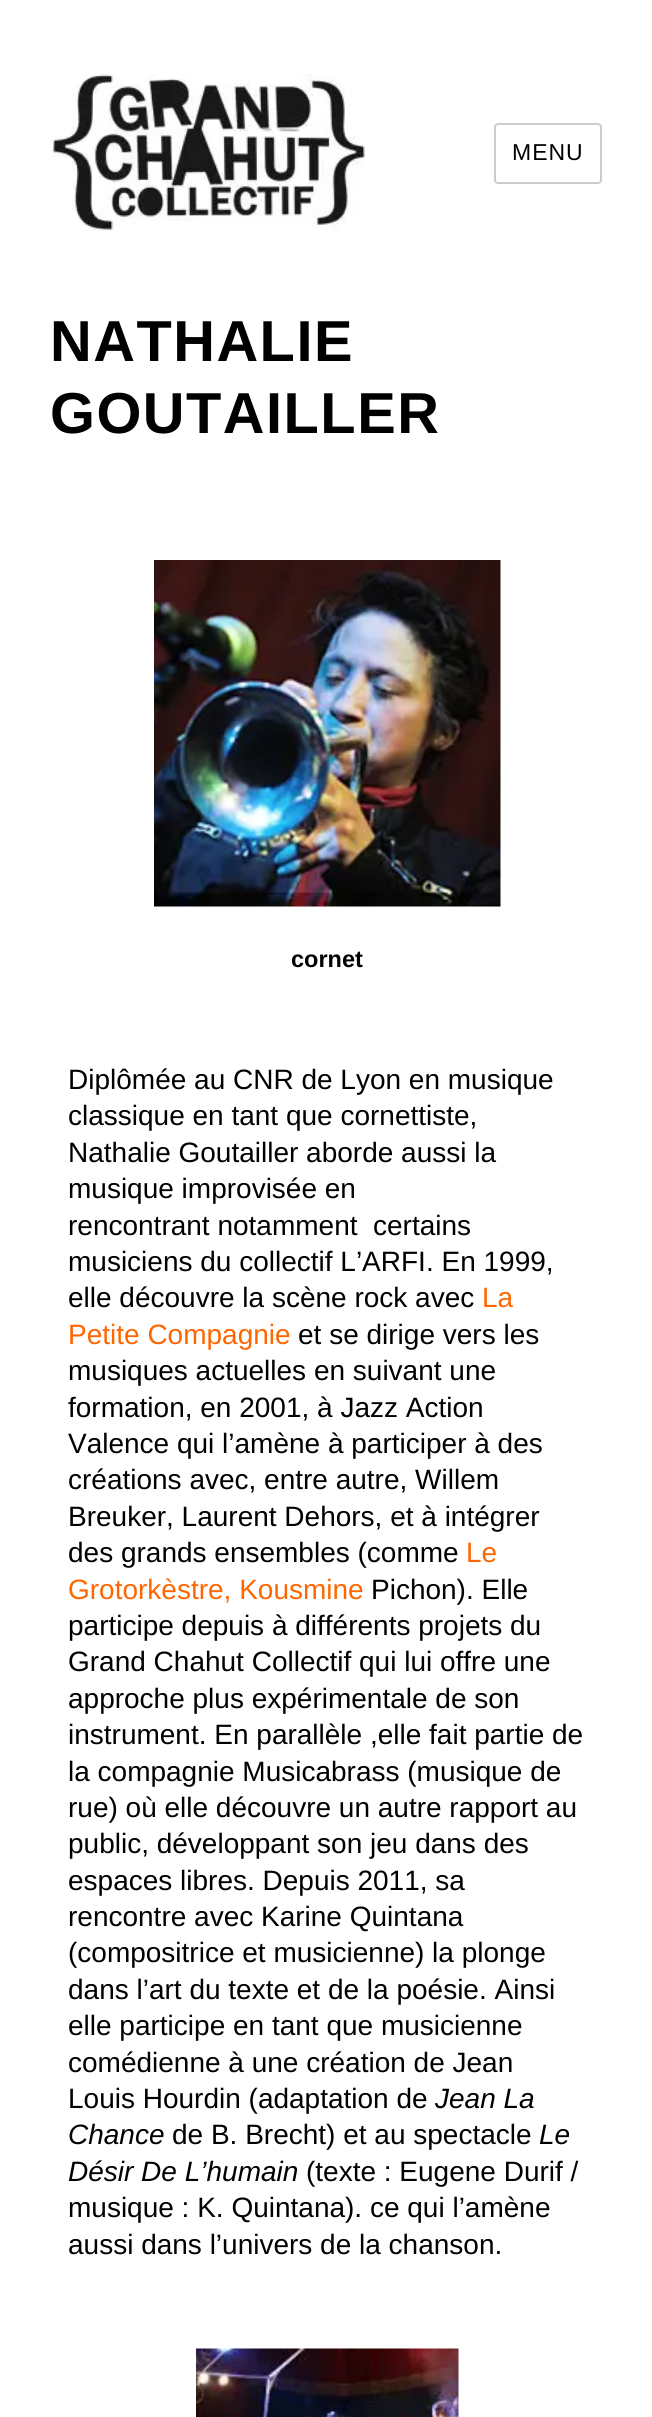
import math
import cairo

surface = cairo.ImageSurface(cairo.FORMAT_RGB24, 652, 2417)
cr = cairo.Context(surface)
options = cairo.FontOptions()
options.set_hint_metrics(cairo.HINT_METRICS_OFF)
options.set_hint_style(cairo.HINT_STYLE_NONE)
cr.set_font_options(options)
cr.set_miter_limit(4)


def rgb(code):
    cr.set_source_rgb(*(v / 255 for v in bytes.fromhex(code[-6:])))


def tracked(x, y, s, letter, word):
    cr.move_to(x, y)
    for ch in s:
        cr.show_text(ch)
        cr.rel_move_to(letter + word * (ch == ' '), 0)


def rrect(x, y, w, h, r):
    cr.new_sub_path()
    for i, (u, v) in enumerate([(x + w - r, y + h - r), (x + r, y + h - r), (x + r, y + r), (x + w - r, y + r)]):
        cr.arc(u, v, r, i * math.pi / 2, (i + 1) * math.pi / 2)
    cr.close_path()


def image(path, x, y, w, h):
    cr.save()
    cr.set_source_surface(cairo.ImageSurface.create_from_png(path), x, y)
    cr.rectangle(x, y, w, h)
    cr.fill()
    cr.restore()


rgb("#ffffff")
cr.paint()
image("img/1.png", 51, 74, 314, 157)
rrect(495, 124, 106, 59, 3)
rgb("#cccccc")
cr.stroke()
image("img/2.png", 154, 560, 347, 347)
image("img/3.png", 196, 2348, 263, 69)
cr.select_font_face("Liberation Sans")
cr.set_font_size(23)
rgb("#000000")
tracked(512, 160, "MENU", 1, 0)
cr.select_font_face("Liberation Sans", cairo.FONT_SLANT_NORMAL, cairo.FONT_WEIGHT_BOLD)
cr.set_font_size(57.75)
tracked(50, 361, "NATHALIE", 1.5, 0)
tracked(50, 433, "GOUTAILLER", 1.5, 0)
cr.set_font_size(23.5)
cr.move_to(291, 967)
cr.show_text("cornet")
cr.select_font_face("Liberation Sans")
cr.set_font_size(28)
for x, y, s in [
    (68, 1089, "Diplômée au CNR de Lyon en musique"),
    (68, 1125, "classique en tant que cornettiste,"),
    (68, 1162, "Nathalie Goutailler aborde aussi la"),
    (68, 1198, "musique improvisée en"),
    (68, 1235, "rencontrant notamment  certains"),
    (68, 1271, "musiciens du collectif L’ARFI. En 1999,"),
    (68, 1307, "elle découvre la scène rock avec"),
]:
    cr.move_to(x, y)
    cr.show_text(s)
rgb("#ff6600")
cr.move_to(482, 1307)
cr.show_text("La")
cr.move_to(68, 1344)
cr.show_text("Petite Compagnie")
rgb("#000000")
for x, y, s in [
    (298, 1344, "et se dirige vers les"),
    (68, 1380, "musiques actuelles en suivant une"),
    (68, 1417, "formation, en 2001, à Jazz Action"),
    (68, 1453, "Valence qui l’amène à participer à des"),
    (68, 1489, "créations avec, entre autre, Willem"),
    (68, 1526, "Breuker, Laurent Dehors, et à intégrer"),
    (68, 1562, "des grands ensembles (comme"),
]:
    cr.move_to(x, y)
    cr.show_text(s)
rgb("#ff6600")
cr.move_to(466, 1562)
cr.show_text("Le")
cr.move_to(68, 1599)
cr.show_text("Grotorkèstre, Kousmine")
rgb("#000000")
for x, y, s in [
    (371, 1599, "Pichon). Elle"),
    (68, 1635, "participe depuis à différents projets du"),
    (68, 1671, "Grand Chahut Collectif qui lui offre une"),
    (68, 1708, "approche plus expérimentale de son"),
    (68, 1744, "instrument. En parallèle ,elle fait partie de"),
    (68, 1781, "la compagnie Musicabrass (musique de"),
    (68, 1817, "rue) où elle découvre un autre rapport au"),
    (68, 1853, "public, développant son jeu dans des"),
    (68, 1890, "espaces libres. Depuis 2011, sa"),
    (68, 1926, "rencontre avec Karine Quintana"),
    (68, 1962, "(compositrice et musicienne) la plonge"),
    (68, 1999, "dans l’art du texte et de la poésie. Ainsi"),
    (68, 2035, "elle participe en tant que musicienne"),
    (68, 2072, "comédienne à une création de Jean"),
    (68, 2108, "Louis Hourdin (adaptation de"),
]:
    cr.move_to(x, y)
    cr.show_text(s)
cr.select_font_face("Liberation Sans", cairo.FONT_SLANT_ITALIC)
cr.move_to(435, 2108)
cr.show_text("Jean La")
cr.move_to(68, 2144)
cr.show_text("Chance")
cr.select_font_face("Liberation Sans")
cr.move_to(172, 2144)
cr.show_text("de B. Brecht) et au spectacle")
cr.select_font_face("Liberation Sans", cairo.FONT_SLANT_ITALIC)
cr.move_to(539, 2144)
cr.show_text("Le")
cr.move_to(68, 2181)
cr.show_text("Désir De L’humain")
cr.select_font_face("Liberation Sans")
for x, y, s in [
    (306, 2181, "(texte : Eugene Durif /"),
    (68, 2217, "musique : K. Quintana). ce qui l’amène"),
    (68, 2254, "aussi dans l’univers de la chanson."),
]:
    cr.move_to(x, y)
    cr.show_text(s)
surface.write_to_png("page.png")
